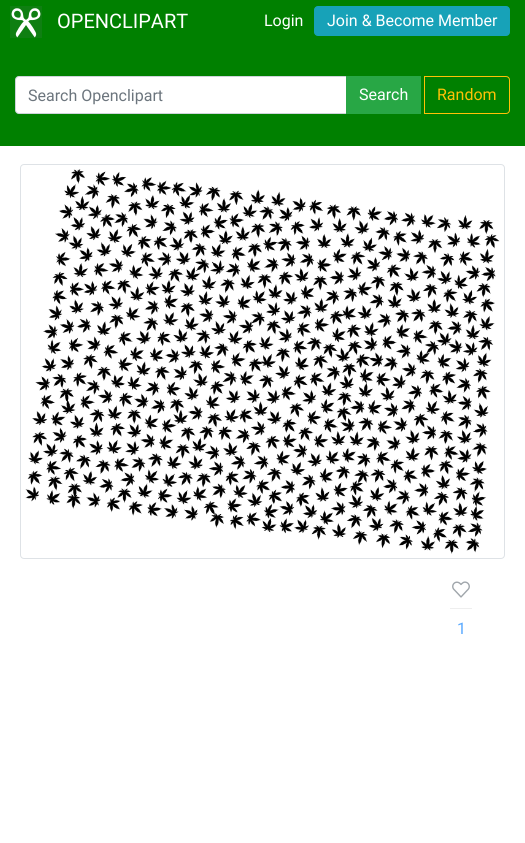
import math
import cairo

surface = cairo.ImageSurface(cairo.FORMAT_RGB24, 525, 843)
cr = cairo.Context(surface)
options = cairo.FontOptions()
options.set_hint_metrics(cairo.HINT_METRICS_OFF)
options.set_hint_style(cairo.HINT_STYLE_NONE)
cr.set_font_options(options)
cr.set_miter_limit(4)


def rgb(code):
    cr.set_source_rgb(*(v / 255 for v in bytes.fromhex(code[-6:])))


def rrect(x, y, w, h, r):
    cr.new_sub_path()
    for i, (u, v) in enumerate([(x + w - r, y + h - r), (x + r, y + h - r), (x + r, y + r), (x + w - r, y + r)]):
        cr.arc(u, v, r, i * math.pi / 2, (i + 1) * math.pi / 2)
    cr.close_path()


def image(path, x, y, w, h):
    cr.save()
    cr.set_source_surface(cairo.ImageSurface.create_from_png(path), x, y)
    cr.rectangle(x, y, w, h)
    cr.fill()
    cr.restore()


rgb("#ffffff")
cr.paint()
rgb("#008000")
cr.rectangle(0, 0, 525, 146)
cr.fill()
image("img/1.png", 10, 6, 32, 32)
rgb("#17a2b8")
rrect(314.5, 6.5, 195, 29, 3.5)
cr.fill_preserve()
cr.set_line_width(1)
cr.stroke()
rgb("#ffffff")
cr.new_path()
cr.move_to(19, 76.5)
cr.line_to(346.5, 76.5)
cr.line_to(346.5, 113.5)
cr.line_to(19, 113.5)
cr.curve_to(17, 113.5, 15.5, 112, 15.5, 110)
cr.line_to(15.5, 80)
cr.curve_to(15.5, 78, 17, 76.5, 19, 76.5)
cr.close_path()
cr.fill_preserve()
rgb("#ced4da")
cr.stroke()
rgb("#28a745")
cr.rectangle(346, 76, 75, 38)
cr.fill()
cr.new_path()
cr.move_to(424.5, 76.5)
cr.line_to(506, 76.5)
cr.curve_to(508, 76.5, 509.5, 78, 509.5, 80)
cr.line_to(509.5, 110)
cr.curve_to(509.5, 112, 508, 113.5, 506, 113.5)
cr.line_to(424.5, 113.5)
cr.close_path()
rgb("#ffc107")
cr.stroke()
rrect(20.5, 164.5, 484, 394, 3.5)
rgb("#dee2e6")
cr.stroke()
image("img/2.png", 25, 169, 475, 385)
image("img/3.png", 452, 581, 18, 17)
rgb("#eeeeee")
cr.rectangle(450, 608, 22, 1)
cr.fill()
cr.select_font_face("Roboto")
cr.set_font_size(20)
rgb("#ffffff")
cr.move_to(57, 28)
cr.show_text("OPENCLIPART")
cr.set_font_size(16)
cr.move_to(264, 26)
cr.show_text("Login")
cr.move_to(327, 26)
cr.show_text("Join & Become Member")
rgb("#6c757d")
cr.move_to(28, 101)
cr.show_text("Search Openclipart")
rgb("#ffffff")
cr.move_to(359, 100)
cr.show_text("Search")
rgb("#ffc107")
cr.move_to(437, 100)
cr.show_text("Random")
rgb("#59a9ff")
cr.move_to(457, 634)
cr.show_text("1")
surface.write_to_png("page.png")
